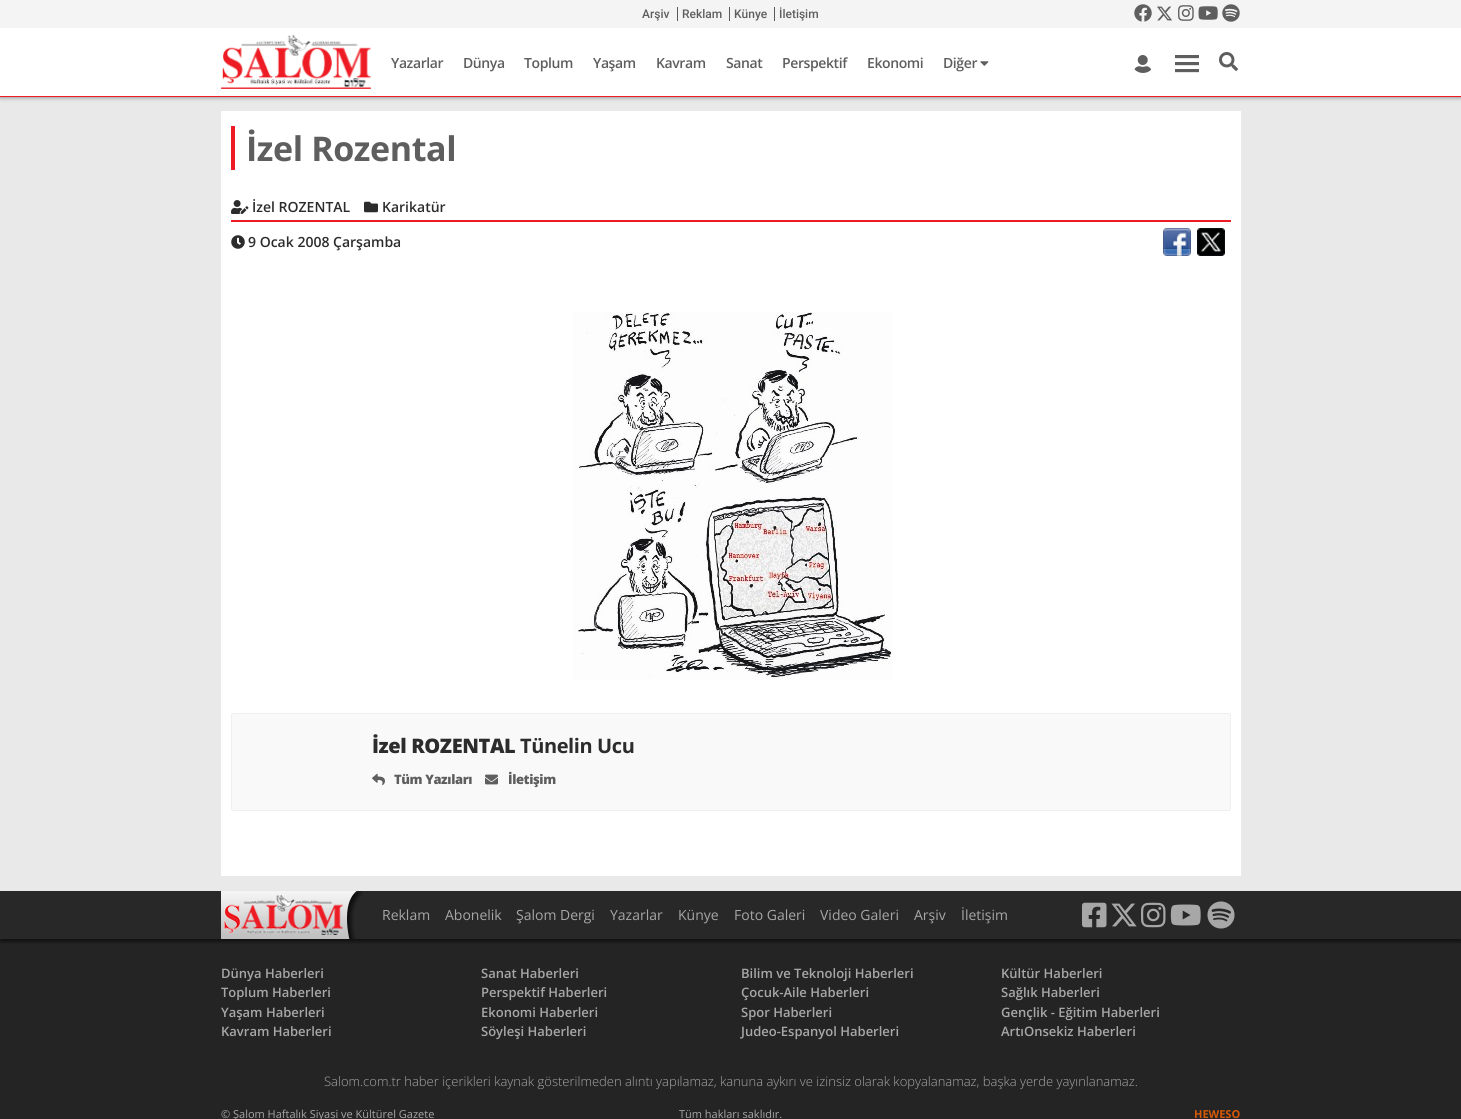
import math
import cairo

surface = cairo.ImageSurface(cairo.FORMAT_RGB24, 1461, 1119)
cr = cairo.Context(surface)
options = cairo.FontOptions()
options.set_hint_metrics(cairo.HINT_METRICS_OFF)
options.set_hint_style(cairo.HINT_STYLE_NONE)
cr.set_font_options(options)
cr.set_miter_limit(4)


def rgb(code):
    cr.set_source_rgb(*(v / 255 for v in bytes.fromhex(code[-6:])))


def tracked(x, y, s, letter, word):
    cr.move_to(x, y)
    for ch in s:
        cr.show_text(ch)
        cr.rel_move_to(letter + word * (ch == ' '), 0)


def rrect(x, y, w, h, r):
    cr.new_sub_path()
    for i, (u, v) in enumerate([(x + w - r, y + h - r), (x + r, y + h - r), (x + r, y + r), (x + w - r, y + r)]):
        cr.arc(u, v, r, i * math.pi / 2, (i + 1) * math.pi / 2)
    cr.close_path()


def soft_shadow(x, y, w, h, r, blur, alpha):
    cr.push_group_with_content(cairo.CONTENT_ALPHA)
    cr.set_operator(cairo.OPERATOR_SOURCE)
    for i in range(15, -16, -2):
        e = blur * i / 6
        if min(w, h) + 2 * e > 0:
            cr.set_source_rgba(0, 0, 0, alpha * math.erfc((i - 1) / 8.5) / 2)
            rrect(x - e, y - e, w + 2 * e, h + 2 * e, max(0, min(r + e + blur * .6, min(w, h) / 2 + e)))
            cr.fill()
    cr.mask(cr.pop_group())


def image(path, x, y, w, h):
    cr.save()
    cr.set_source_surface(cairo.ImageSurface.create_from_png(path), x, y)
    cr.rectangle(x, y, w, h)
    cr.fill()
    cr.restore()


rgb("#e9e9e9")
cr.paint()
rgb("#000000")
soft_shadow(0, 28, 1461, 69, 0, 2.5, 0.5)
for x, y, w, h, color in [
    (0, 0, 1461, 28, "#f4f4f4"),
    (677, 7, 1, 14, "#5c5b5b"),
    (729, 7, 1, 14, "#5c5b5b"),
    (774, 7, 1, 14, "#5c5b5b"),
]:
    rgb(color)
    cr.rectangle(x, y, w, h)
    cr.fill()
image("img/1.png", 1134, 4, 18, 18)
image("img/2.png", 1157, 6, 15, 15)
image("img/3.png", 1178, 5, 16, 16)
image("img/4.png", 1198, 6, 20, 14)
image("img/5.png", 1222, 4, 18, 18)
rgb("#ffffff")
cr.rectangle(0, 28, 1461, 68)
cr.fill()
rgb("#ed1c24")
cr.rectangle(0, 96, 1461, 1)
cr.fill()
image("img/6.png", 221, 35, 150, 54)
image("img/7.png", 980, 61, 9, 5)
image("img/8.png", 1134, 55, 18, 18)
for x, y, w, h, color in [
    (1175, 55, 24, 3, "#5e5e5e"),
    (1175, 58, 24, 1, "#e5e5e5"),
    (1175, 62, 24, 3, "#5e5e5e"),
    (1175, 65, 24, 1, "#e5e5e5"),
    (1175, 69, 24, 3, "#5e5e5e"),
    (1175, 72, 24, 1, "#e5e5e5"),
]:
    rgb(color)
    cr.rectangle(x, y, w, h)
    cr.fill()
image("img/9.png", 1219, 52, 19, 19)
for x, y, w, h, color in [
    (221, 111, 1020, 765, "#ffffff"),
    (231, 126, 4, 44, "#ed1c24"),
    (231, 220, 1000, 2, "#ed1c24"),
]:
    rgb(color)
    cr.rectangle(x, y, w, h)
    cr.fill()
image("img/10.png", 231, 200, 18, 14)
image("img/11.png", 364, 201, 14, 12)
image("img/12.png", 231, 235, 14, 14)
image("img/13.png", 1163, 228, 28, 28)
image("img/14.png", 1197, 228, 28, 28)
image("img/15.png", 573, 312, 320, 368)
rgb("#f9f9f9")
rrect(231.5, 713.5, 999, 97, 1.5)
cr.fill_preserve()
rgb("#efefef")
cr.set_line_width(1)
cr.stroke()
image("img/16.png", 372, 773, 13, 13)
image("img/17.png", 485, 774, 13, 11)
rgb("#242424")
cr.rectangle(0, 939, 1461, 180)
cr.fill()
rgb("#000000")
soft_shadow(0, 894, 1461, 48, 0, 1.5, 0.5)
rgb("#282828")
cr.rectangle(0, 891, 1461, 48)
cr.fill()
image("img/18.png", 221, 891, 142, 48)
image("img/19.png", 1082, 902, 25, 26)
image("img/20.png", 1111, 903, 26, 24)
image("img/21.png", 1141, 902, 25, 26)
image("img/22.png", 1170, 904, 31, 22)
image("img/23.png", 1207, 901, 28, 28)
cr.select_font_face("Roboto Medium")
cr.set_font_size(12)
rgb("#5e5e5e")
for x, y, s in [
    (642, 18, "Arşiv"),
    (682, 18, "Reklam"),
    (734, 18, "Künye"),
    (779, 18, "İletişim"),
]:
    cr.move_to(x, y)
    cr.show_text(s)
cr.select_font_face("Open Sans SemiBold")
cr.set_font_size(14)
for x, y, s in [
    (391, 68, "Yazarlar"),
    (463, 68, "Dünya"),
    (524, 68, "Toplum"),
    (593, 68, "Yaşam"),
    (656, 68, "Kavram"),
    (726, 68, "Sanat"),
    (782, 68, "Perspektif"),
    (867, 68, "Ekonomi"),
    (943, 68, "Diğer"),
]:
    tracked(x, y, s, -0.4, 0)
cr.select_font_face("Open Sans", cairo.FONT_SLANT_NORMAL, cairo.FONT_WEIGHT_BOLD)
cr.set_font_size(34)
tracked(246, 161, "İzel Rozental", -0.4, 0)
cr.select_font_face("Open Sans SemiBold")
cr.set_font_size(14)
rgb("#2d2c2c")
for x, y, s in [
    (252, 212, "İzel ROZENTAL"),
    (382, 212, "Karikatür"),
    (248, 247, "9 Ocak 2008 Çarşamba"),
]:
    cr.move_to(x, y)
    cr.show_text(s)
cr.select_font_face("Open Sans ExtraBold")
cr.set_font_size(20)
tracked(372, 753, "İzel ROZENTAL", -0.4, 0)
cr.select_font_face("Open Sans", cairo.FONT_SLANT_NORMAL, cairo.FONT_WEIGHT_BOLD)
tracked(520, 753, "Tünelin Ucu", -0.4, 0)
cr.select_font_face("Open Sans ExtraBold")
cr.set_font_size(13)
rgb("#5e5e5e")
tracked(394, 784, "Tüm Yazıları", -0.4, 0)
tracked(508, 784, "İletişim", -0.4, 0)
cr.select_font_face("Open Sans")
cr.set_font_size(14)
rgb("#a7a7a7")
for x, y, s in [
    (382, 920, "Reklam"),
    (445, 920, "Abonelik"),
    (516, 920, "Şalom Dergi"),
    (610, 920, "Yazarlar"),
    (678, 920, "Künye"),
    (734, 920, "Foto Galeri"),
    (820, 920, "Video Galeri"),
    (914, 920, "Arşiv"),
    (961, 920, "İletişim"),
]:
    cr.move_to(x, y)
    cr.show_text(s)
cr.select_font_face("Open Sans SemiBold")
cr.set_font_size(13)
for x, y, s in [
    (221, 978, "Dünya Haberleri"),
    (221, 997, "Toplum Haberleri"),
    (221, 1017, "Yaşam Haberleri"),
    (221, 1036, "Kavram Haberleri"),
    (481, 978, "Sanat Haberleri"),
    (481, 997, "Perspektif Haberleri"),
    (481, 1017, "Ekonomi Haberleri"),
    (481, 1036, "Söyleşi Haberleri"),
    (741, 978, "Bilim ve Teknoloji Haberleri"),
    (741, 997, "Çocuk-Aile Haberleri"),
    (741, 1017, "Spor Haberleri"),
    (741, 1036, "Judeo-Espanyol Haberleri"),
    (1001, 978, "Kültür Haberleri"),
    (1001, 997, "Sağlık Haberleri"),
    (1001, 1017, "Gençlik - Eğitim Haberleri"),
    (1001, 1036, "ArtıOnsekiz Haberleri"),
]:
    cr.move_to(x, y)
    cr.show_text(s)
cr.select_font_face("Open Sans Light")
cr.move_to(324, 1086)
cr.show_text("Salom.com.tr haber içerikleri kaynak gösterilmeden alıntı yapılamaz, kanuna aykırı ve izinsiz olarak kopyalanamaz, başka yerde yayınlanamaz.")
cr.select_font_face("Open Sans")
cr.set_font_size(11)
cr.move_to(221, 1118)
cr.show_text("© Şalom Haftalık Siyasi ve Kültürel Gazete")
cr.move_to(679, 1118)
cr.show_text("Tüm hakları saklıdır.")
cr.select_font_face("Open Sans", cairo.FONT_SLANT_NORMAL, cairo.FONT_WEIGHT_BOLD)
rgb("#d55907")
cr.move_to(1194, 1118)
cr.show_text("HEWESO")
surface.write_to_png("page.png")
